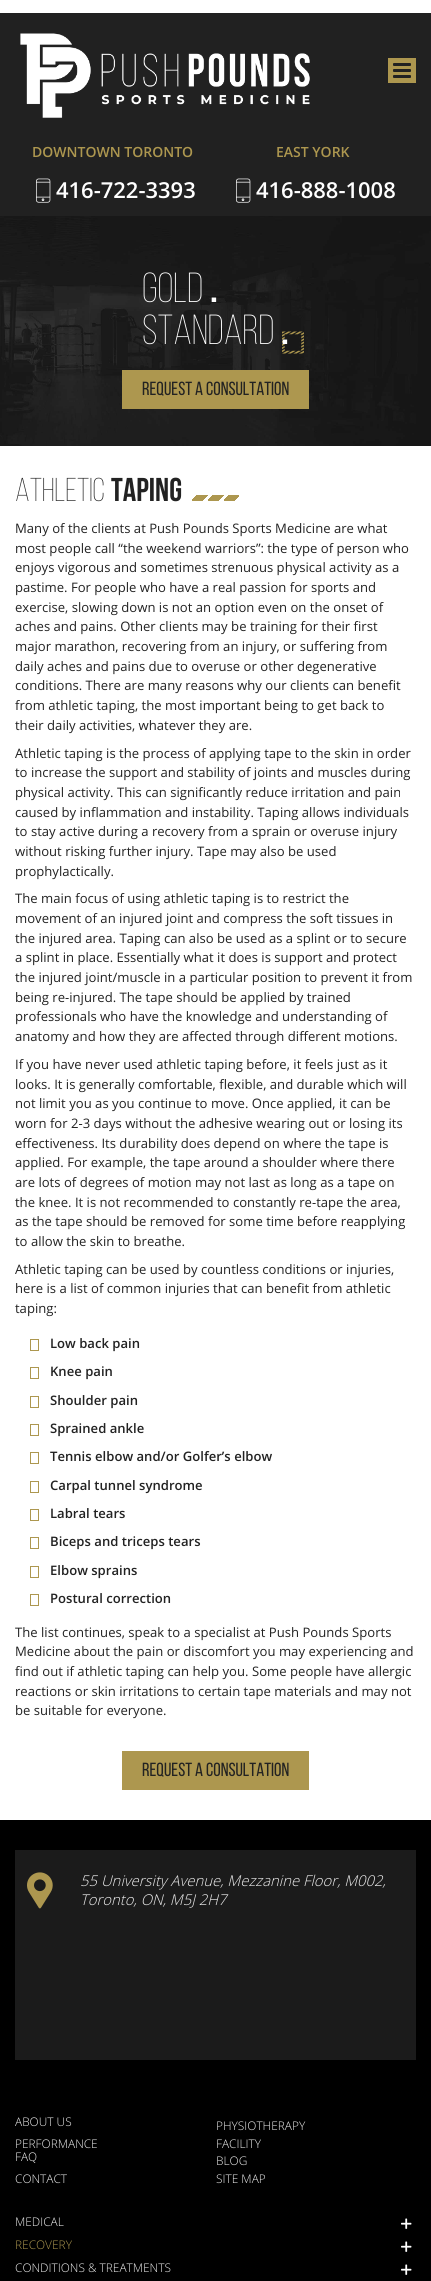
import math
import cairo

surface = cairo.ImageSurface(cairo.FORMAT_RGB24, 431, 2281)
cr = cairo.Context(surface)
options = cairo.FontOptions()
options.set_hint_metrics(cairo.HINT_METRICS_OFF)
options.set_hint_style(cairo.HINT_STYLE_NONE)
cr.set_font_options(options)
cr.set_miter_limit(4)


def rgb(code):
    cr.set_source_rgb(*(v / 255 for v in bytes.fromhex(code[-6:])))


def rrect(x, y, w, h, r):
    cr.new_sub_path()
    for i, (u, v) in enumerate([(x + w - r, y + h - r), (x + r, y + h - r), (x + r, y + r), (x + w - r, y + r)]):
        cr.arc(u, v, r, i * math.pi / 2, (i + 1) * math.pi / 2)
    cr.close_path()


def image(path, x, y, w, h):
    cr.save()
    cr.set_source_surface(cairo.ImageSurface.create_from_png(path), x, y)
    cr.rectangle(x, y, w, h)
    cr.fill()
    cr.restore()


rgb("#ffffff")
cr.paint()
rgb("#212121")
cr.rectangle(0, 13, 431, 203)
cr.fill()
rgb("#ad974f")
cr.rectangle(388, 58, 28, 25)
cr.fill()
rgb("#212121")
rrect(393, 63, 18, 3, 1)
cr.fill()
rrect(393, 69, 18, 3, 1)
cr.fill()
rrect(393, 75, 18, 3, 1)
cr.fill()
image("img/1.png", 20, 33, 290, 85)
image("img/2.png", 36, 178, 15, 25)
image("img/2.png", 236, 178, 15, 25)
image("img/3.png", 0, 216, 431, 230)
image("img/4.png", 282, 331, 22, 23)
rgb("#ad974f")
cr.rectangle(122, 370, 187, 39)
cr.fill()
gradient = cairo.LinearGradient(210, 516, 187, 493)
gradient.add_color_stop_rgba(0, 0.678, 0.592, 0.31, 1)
gradient.add_color_stop_rgba(0.25, 0.678, 0.592, 0.31, 1)
gradient.add_color_stop_rgba(0.25, 1, 1, 1, 1)
gradient.add_color_stop_rgba(0.5, 1, 1, 1, 1)
gradient.add_color_stop_rgba(0.5, 0.678, 0.592, 0.31, 1)
gradient.add_color_stop_rgba(0.75, 0.678, 0.592, 0.31, 1)
gradient.add_color_stop_rgba(0.75, 1, 1, 1, 1)
gradient.add_color_stop_rgba(1, 1, 1, 1, 1)
cr.set_source(gradient)
cr.rectangle(192, 495, 16, 6)
cr.fill()
gradient = cairo.LinearGradient(226, 516, 203, 493)
gradient.add_color_stop_rgba(0, 0.678, 0.592, 0.31, 1)
gradient.add_color_stop_rgba(0.25, 0.678, 0.592, 0.31, 1)
gradient.add_color_stop_rgba(0.25, 1, 1, 1, 1)
gradient.add_color_stop_rgba(0.5, 1, 1, 1, 1)
gradient.add_color_stop_rgba(0.5, 0.678, 0.592, 0.31, 1)
gradient.add_color_stop_rgba(0.75, 0.678, 0.592, 0.31, 1)
gradient.add_color_stop_rgba(0.75, 1, 1, 1, 1)
gradient.add_color_stop_rgba(1, 1, 1, 1, 1)
cr.set_source(gradient)
cr.rectangle(208, 495, 16, 6)
cr.fill()
gradient = cairo.LinearGradient(242, 516, 219, 493)
gradient.add_color_stop_rgba(0, 0.678, 0.592, 0.31, 1)
gradient.add_color_stop_rgba(0.25, 0.678, 0.592, 0.31, 1)
gradient.add_color_stop_rgba(0.25, 1, 1, 1, 1)
gradient.add_color_stop_rgba(0.5, 1, 1, 1, 1)
gradient.add_color_stop_rgba(0.5, 0.678, 0.592, 0.31, 1)
gradient.add_color_stop_rgba(0.75, 0.678, 0.592, 0.31, 1)
gradient.add_color_stop_rgba(0.75, 1, 1, 1, 1)
gradient.add_color_stop_rgba(1, 1, 1, 1, 1)
cr.set_source(gradient)
cr.rectangle(224, 495, 15, 6)
cr.fill()
cr.rectangle(30.5, 1339.5, 8, 11)
rgb("#ad974f")
cr.set_line_width(1)
cr.stroke()
cr.rectangle(30.5, 1367.5, 8, 11)
cr.stroke()
cr.rectangle(30.5, 1396.5, 8, 11)
cr.stroke()
cr.rectangle(30.5, 1424.5, 8, 11)
cr.stroke()
cr.rectangle(30.5, 1452.5, 8, 11)
cr.stroke()
cr.rectangle(30.5, 1481.5, 8, 11)
cr.stroke()
cr.rectangle(30.5, 1509.5, 8, 11)
cr.stroke()
cr.rectangle(30.5, 1537.5, 8, 11)
cr.stroke()
cr.rectangle(30.5, 1566.5, 8, 11)
cr.stroke()
cr.rectangle(30.5, 1594.5, 8, 11)
cr.stroke()
for x, y, w, h, color in [
    (122, 1751, 187, 39, "#ad974f"),
    (0, 1820, 431, 461, "#000000"),
    (15, 1850, 401, 210, "#1b1b1b"),
]:
    rgb(color)
    cr.rectangle(x, y, w, h)
    cr.fill()
image("img/5.png", 27, 1872, 26, 37)
image("img/6.png", 401, 2218, 11, 11)
image("img/6.png", 401, 2241, 11, 11)
image("img/6.png", 401, 2264, 11, 11)
cr.select_font_face("Open Sans SemiBold")
cr.set_font_size(14)
rgb("#ad974f")
cr.move_to(32, 157)
cr.show_text("DOWNTOWN TORONTO")
cr.set_font_size(22)
rgb("#ffffff")
cr.move_to(56, 198)
cr.show_text("416-722-3393")
cr.set_font_size(14)
rgb("#ad974f")
cr.move_to(276, 157)
cr.show_text("EAST YORK")
cr.set_font_size(22)
rgb("#ffffff")
cr.move_to(256, 198)
cr.show_text("416-888-1008")
cr.select_font_face("Bebas Neue Light")
cr.set_font_size(42)
cr.move_to(142, 302)
cr.show_text("GOLD")
cr.select_font_face("Bebas Neue", cairo.FONT_SLANT_NORMAL, cairo.FONT_WEIGHT_BOLD)
cr.move_to(210, 302)
cr.show_text(".")
cr.select_font_face("Bebas Neue Light")
cr.move_to(142, 344)
cr.show_text("STANDARD")
cr.select_font_face("Bebas Neue", cairo.FONT_SLANT_NORMAL, cairo.FONT_WEIGHT_BOLD)
cr.move_to(281, 344)
cr.show_text(".")
cr.select_font_face("Bebas Neue")
cr.set_font_size(19)
rgb("#222222")
cr.move_to(142, 395)
cr.show_text("REQUEST A CONSULTATION")
cr.select_font_face("Bebas Neue Light")
cr.set_font_size(33)
cr.move_to(15, 501)
cr.show_text("ATHLETIC")
cr.select_font_face("Bebas Neue", cairo.FONT_SLANT_NORMAL, cairo.FONT_WEIGHT_BOLD)
cr.move_to(111, 501)
cr.show_text("TAPING")
cr.select_font_face("Open Sans")
cr.set_font_size(13.1)
for x, y, s in [
    (15, 533, "Many of the clients at Push Pounds Sports Medicine are what"),
    (15, 553, "most people call “the weekend warriors”: the type of person who"),
    (15, 572, "enjoys vigorous and sometimes strenuous physical activity as a"),
    (15, 592, "pastime. For people who have a real passion for sports and"),
    (15, 612, "exercise, slowing down is not an option even on the onset of"),
    (15, 631, "aches and pains. Other clients may be training for their first"),
    (15, 651, "major marathon, recovering from an injury, or suffering from"),
    (15, 671, "daily aches and pains due to overuse or other degenerative"),
    (15, 690, "conditions. There are many reasons why our clients can benefit"),
    (15, 710, "from athletic taping, the most important being to get back to"),
    (15, 730, "their daily activities, whatever they are."),
    (15, 758, "Athletic taping is the process of applying tape to the skin in order"),
    (15, 777, "to increase the support and stability of joints and muscles during"),
    (15, 797, "physical activity. This can significantly reduce irritation and pain"),
    (15, 817, "caused by inflammation and instability. Taping allows individuals"),
    (15, 836, "to stay active during a recovery from a sprain or overuse injury"),
    (15, 856, "without risking further injury. Tape may also be used"),
    (15, 876, "prophylactically."),
    (15, 903, "The main focus of using athletic taping is to restrict the"),
    (15, 923, "movement of an injured joint and compress the soft tissues in"),
    (15, 943, "the injured area. Taping can also be used as a splint or to secure"),
    (15, 962, "a splint in place. Essentially what it does is support and protect"),
    (15, 982, "the injured joint/muscle in a particular position to prevent it from"),
    (15, 1002, "being re-injured. The tape should be applied by trained"),
    (15, 1021, "professionals who have the knowledge and understanding of"),
    (15, 1041, "anatomy and how they are affected through different motions."),
    (15, 1069, "If you have never used athletic taping before, it feels just as it"),
    (15, 1089, "looks. It is generally comfortable, flexible, and durable which will"),
    (15, 1108, "not limit you as you continue to move. Once applied, it can be"),
    (15, 1128, "worn for 2-3 days without the adhesive wearing out or losing its"),
    (15, 1148, "effectiveness. Its durability does depend on where the tape is"),
    (15, 1167, "applied. For example, the tape around a shoulder where there"),
    (15, 1187, "are lots of degrees of motion may not last as long as a tape on"),
    (15, 1207, "the knee. It is not recommended to constantly re-tape the area,"),
    (15, 1226, "as the tape should be removed for some time before reapplying"),
    (15, 1246, "to allow the skin to breathe."),
    (15, 1274, "Athletic taping can be used by countless conditions or injuries,"),
    (15, 1293, "here is a list of common injuries that can benefit from athletic"),
    (15, 1313, "taping:"),
]:
    cr.move_to(x, y)
    cr.show_text(s)
cr.select_font_face("Open Sans SemiBold")
for x, y, s in [
    (50, 1348, "Low back pain"),
    (50, 1376, "Knee pain"),
    (50, 1405, "Shoulder pain"),
    (50, 1433, "Sprained ankle"),
    (50, 1461, "Tennis elbow and/or Golfer’s elbow"),
    (50, 1490, "Carpal tunnel syndrome"),
    (50, 1518, "Labral tears"),
    (50, 1546, "Biceps and triceps tears"),
    (50, 1575, "Elbow sprains"),
    (50, 1603, "Postural correction"),
]:
    cr.move_to(x, y)
    cr.show_text(s)
cr.select_font_face("Open Sans")
for x, y, s in [
    (15, 1637, "The list continues, speak to a specialist at Push Pounds Sports"),
    (15, 1656, "Medicine about the pain or discomfort you may experiencing and"),
    (15, 1676, "find out if athletic taping can help you. Some people have allergic"),
    (15, 1696, "reactions or skin irritations to certain tape materials and may not"),
    (15, 1715, "be suitable for everyone."),
]:
    cr.move_to(x, y)
    cr.show_text(s)
cr.select_font_face("Bebas Neue")
cr.set_font_size(19)
cr.move_to(142, 1776)
cr.show_text("REQUEST A CONSULTATION")
cr.select_font_face("Open Sans Light", cairo.FONT_SLANT_ITALIC)
cr.set_font_size(14.9)
rgb("#ebebeb")
cr.move_to(80, 1886)
cr.show_text("55 University Avenue, Mezzanine Floor, M002,")
cr.move_to(80, 1905)
cr.show_text("Toronto, ON, M5J 2H7")
cr.select_font_face("Open Sans Light")
cr.set_font_size(11.9)
for x, y, s in [
    (15, 2126, "ABOUT US"),
    (216, 2130, "PHYSIOTHERAPY"),
    (15, 2148, "PERFORMANCE"),
    (216, 2148, "FACILITY"),
    (15, 2161, "FAQ"),
    (216, 2165, "BLOG"),
    (15, 2183, "CONTACT"),
    (216, 2183, "SITE MAP"),
    (15, 2226, "MEDICAL"),
]:
    cr.move_to(x, y)
    cr.show_text(s)
rgb("#ad974f")
cr.move_to(15, 2249)
cr.show_text("RECOVERY")
rgb("#ebebeb")
cr.move_to(15, 2272)
cr.show_text("CONDITIONS & TREATMENTS")
surface.write_to_png("page.png")
